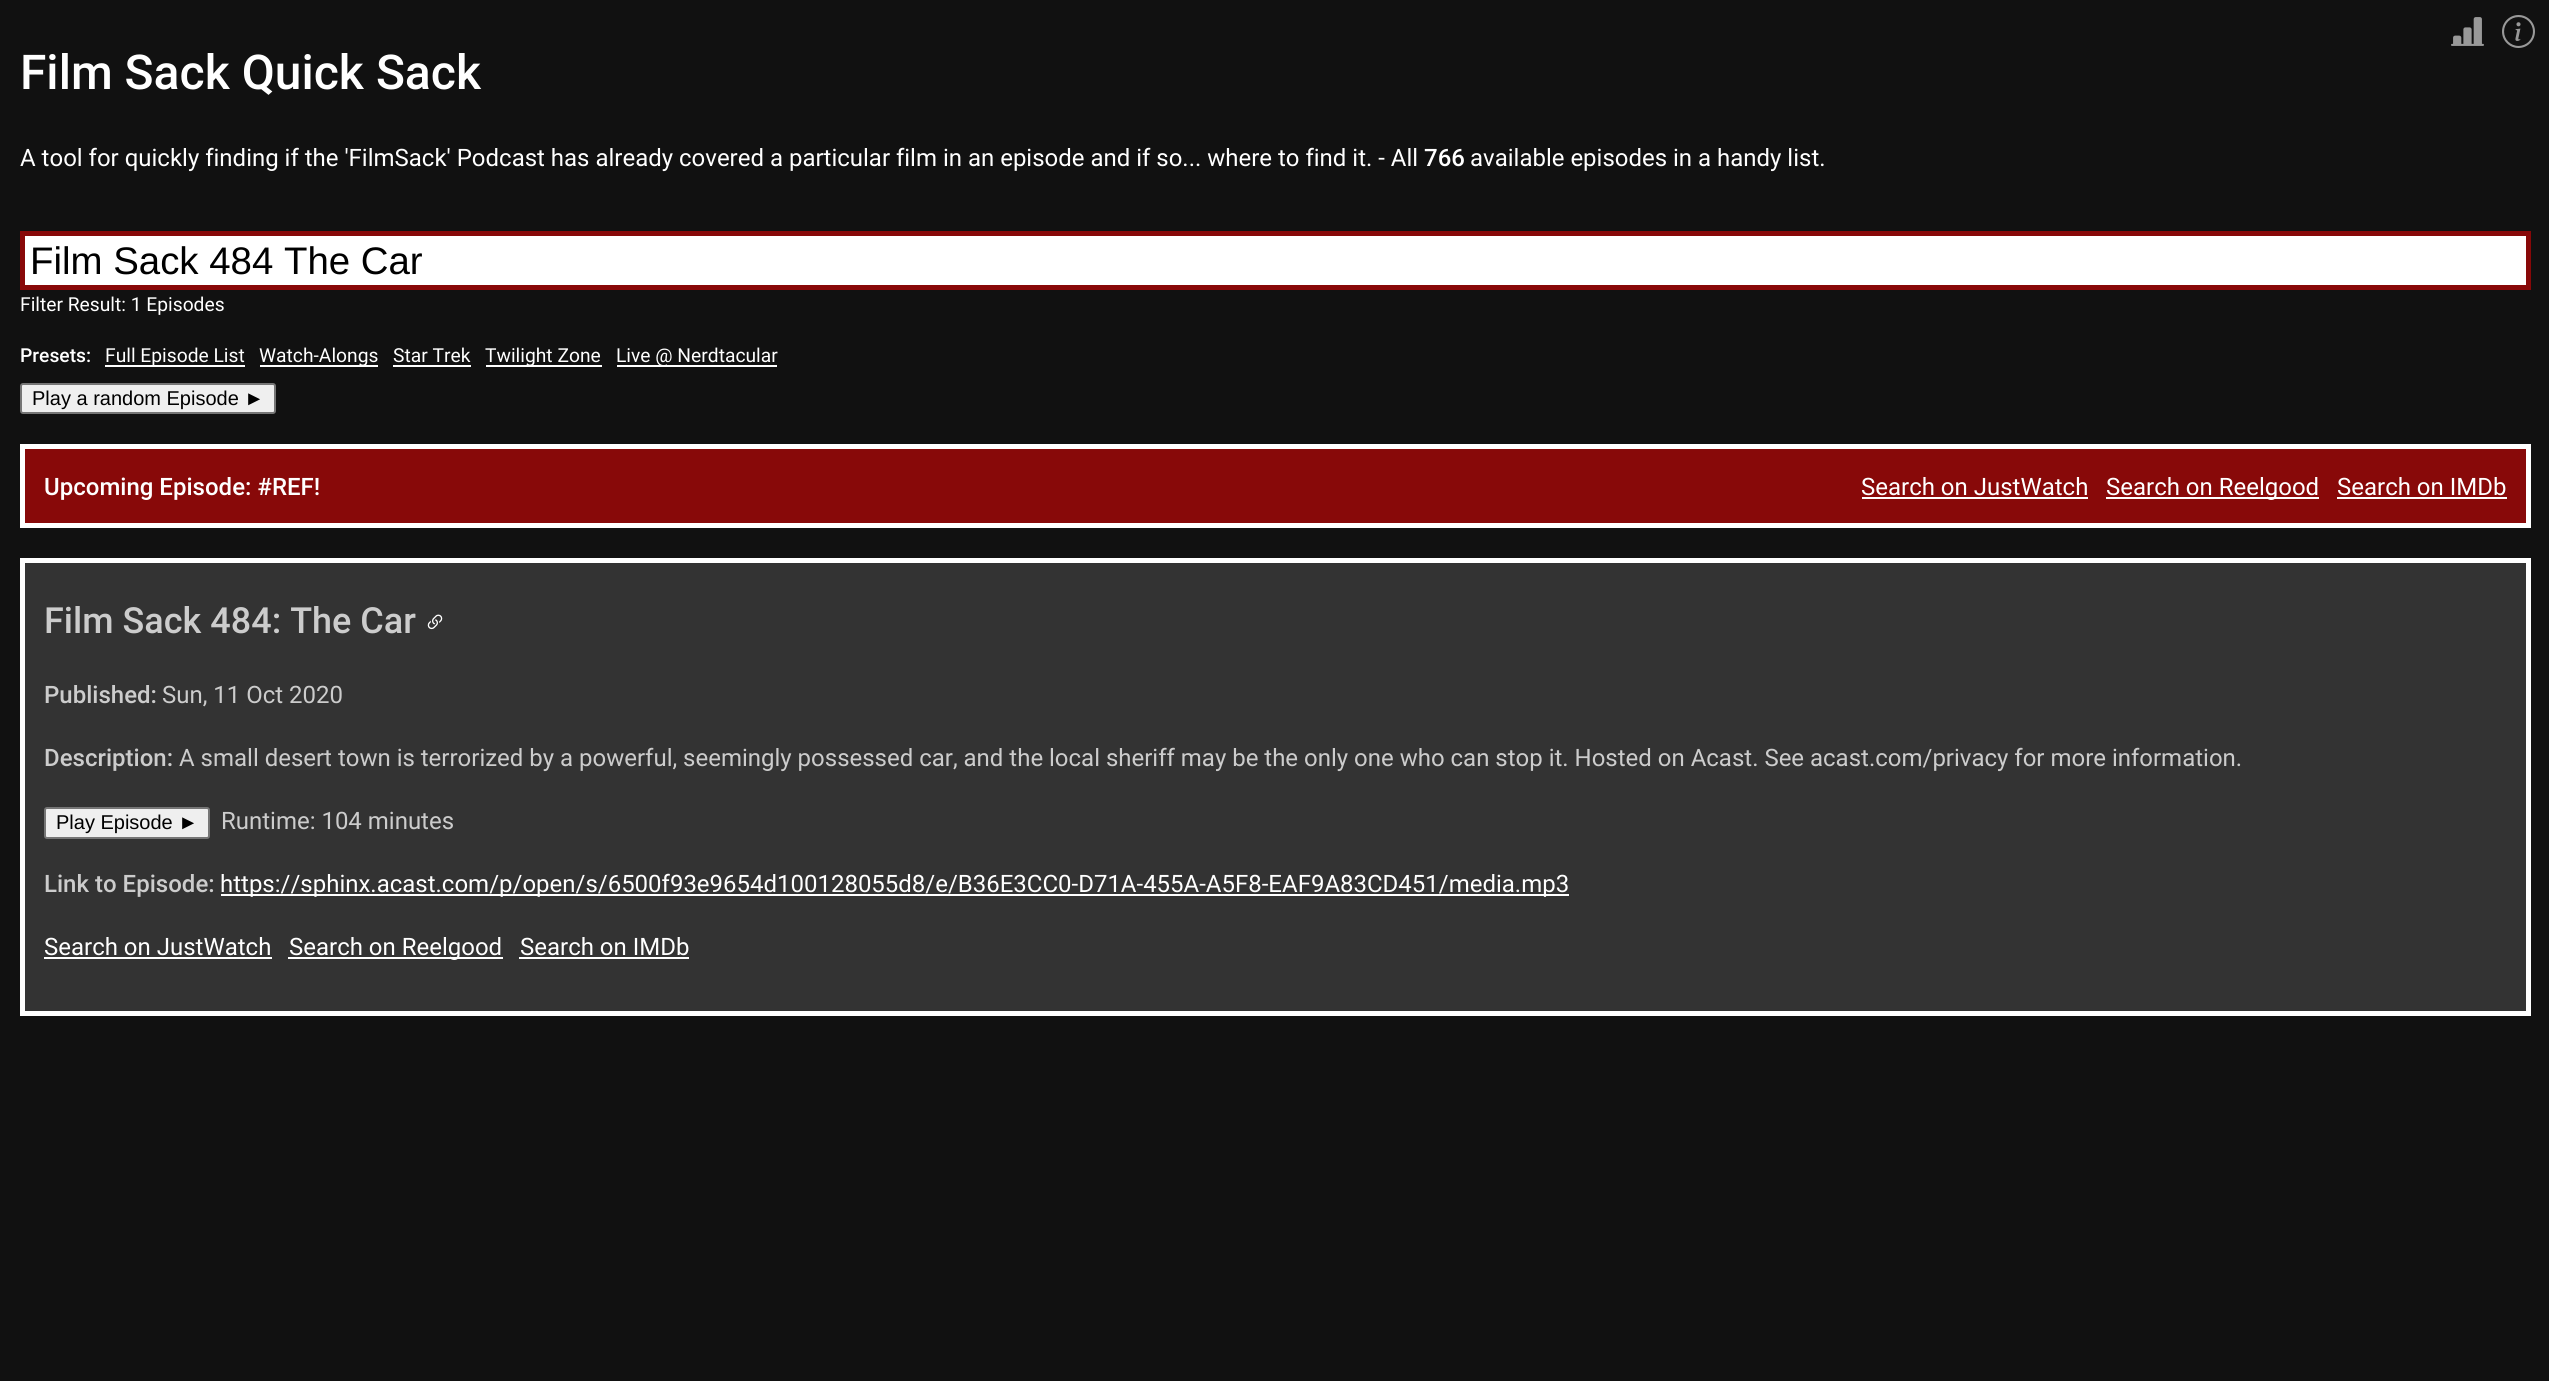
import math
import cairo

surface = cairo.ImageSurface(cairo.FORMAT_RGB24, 2549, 1381)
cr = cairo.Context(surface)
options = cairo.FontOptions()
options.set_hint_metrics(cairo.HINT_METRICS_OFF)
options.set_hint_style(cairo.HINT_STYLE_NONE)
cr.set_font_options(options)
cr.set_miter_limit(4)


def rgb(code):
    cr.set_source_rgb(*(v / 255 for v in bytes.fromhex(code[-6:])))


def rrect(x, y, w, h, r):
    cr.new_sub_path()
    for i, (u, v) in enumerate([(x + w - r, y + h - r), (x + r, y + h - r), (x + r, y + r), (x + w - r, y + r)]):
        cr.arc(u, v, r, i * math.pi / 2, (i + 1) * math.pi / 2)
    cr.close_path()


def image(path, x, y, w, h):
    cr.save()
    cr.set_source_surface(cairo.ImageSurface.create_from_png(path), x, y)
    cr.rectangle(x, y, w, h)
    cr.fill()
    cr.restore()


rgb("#111111")
cr.paint()
image("img/1.png", 2451, 17, 33, 29)
image("img/2.png", 2502, 15, 33, 33)
rgb("#ffffff")
cr.rectangle(22.5, 233.5, 2506, 54)
cr.fill_preserve()
rgb("#880808")
cr.set_line_width(5)
cr.stroke()
for x, y, w, h, color in [
    (105, 365, 140, 2, "#ffffff"),
    (260, 365, 118, 2, "#ffffff"),
    (393, 365, 78, 2, "#ffffff"),
    (486, 365, 116, 2, "#ffffff"),
    (617, 365, 160, 2, "#ffffff"),
]:
    rgb(color)
    cr.rectangle(x, y, w, h)
    cr.fill()
rgb("#efefef")
rrect(21, 384, 254, 29, 2)
cr.fill_preserve()
rgb("#767676")
cr.set_line_width(2)
cr.stroke()
rgb("#880909")
cr.rectangle(22.5, 446.5, 2506, 79)
cr.fill_preserve()
rgb("#ffffff")
cr.set_line_width(5)
cr.stroke()
for x, y, w, h, color in [
    (1862, 497, 226, 2, "#ffffff"),
    (2106, 497, 213, 2, "#ffffff"),
    (2337, 497, 170, 2, "#ffffff"),
]:
    rgb(color)
    cr.rectangle(x, y, w, h)
    cr.fill()
rgb("#333333")
cr.rectangle(22.5, 560.5, 2506, 453)
cr.fill_preserve()
rgb("#ffffff")
cr.stroke()
image("img/3.png", 427, 614, 16, 16)
rgb("#efefef")
rrect(45, 808, 164, 30, 2)
cr.fill_preserve()
rgb("#767676")
cr.set_line_width(2)
cr.stroke()
for x, y, w, h, color in [
    (221, 894, 1348, 2, "#ffffff"),
    (44, 957, 228, 2, "#ffffff"),
    (288, 957, 215, 2, "#ffffff"),
    (519, 957, 170, 2, "#ffffff"),
]:
    rgb(color)
    cr.rectangle(x, y, w, h)
    cr.fill()
cr.select_font_face("Roboto Medium")
cr.set_font_size(48)
cr.move_to(20, 89)
cr.show_text("Film Sack Quick Sack")
cr.select_font_face("Roboto")
cr.set_font_size(24)
cr.move_to(20, 166)
cr.show_text("A tool for quickly finding if the 'FilmSack' Podcast has already covered a particular film in an episode and if so... where to find it. - All")
cr.select_font_face("Roboto Medium")
cr.move_to(1424, 166)
cr.show_text("766")
cr.select_font_face("Roboto")
cr.move_to(1470, 166)
cr.show_text("available episodes in a handy list.")
cr.select_font_face("Liberation Sans")
cr.set_font_size(38.4)
rgb("#000000")
cr.move_to(30, 274)
cr.show_text("Film Sack 484 The Car")
cr.select_font_face("Roboto")
cr.set_font_size(19.25)
rgb("#ffffff")
cr.move_to(20, 311)
cr.show_text("Filter Result: 1 Episodes")
cr.select_font_face("Roboto Medium")
cr.move_to(20, 362)
cr.show_text("Presets:")
cr.select_font_face("Roboto")
for x, y, s in [
    (105, 362, "Full Episode List"),
    (259, 362, "Watch-Alongs"),
    (393, 362, "Star Trek"),
    (485, 362, "Twilight Zone"),
    (616, 362, "Live @ Nerdtacular"),
]:
    cr.move_to(x, y)
    cr.show_text(s)
cr.select_font_face("Liberation Sans")
cr.set_font_size(20)
rgb("#000000")
cr.move_to(32, 405)
cr.show_text("Play a random Episode ►")
cr.select_font_face("Roboto Medium")
cr.set_font_size(24)
rgb("#ffffff")
cr.move_to(44, 495)
cr.show_text("Upcoming Episode: #REF!")
cr.select_font_face("Roboto")
for x, y, s in [
    (1861, 495, "Search on JustWatch"),
    (2106, 495, "Search on Reelgood"),
    (2337, 495, "Search on IMDb"),
]:
    cr.move_to(x, y)
    cr.show_text(s)
cr.select_font_face("Roboto Medium")
cr.set_font_size(36)
rgb("#cccccc")
cr.move_to(44, 633)
cr.show_text("Film Sack 484: The Car")
cr.set_font_size(24)
cr.move_to(44, 703)
cr.show_text("Published:")
cr.select_font_face("Roboto")
cr.move_to(162, 703)
cr.show_text("Sun, 11 Oct 2020")
cr.select_font_face("Roboto Medium")
cr.move_to(44, 766)
cr.show_text("Description:")
cr.select_font_face("Roboto")
cr.move_to(179, 766)
cr.show_text("A small desert town is terrorized by a powerful, seemingly possessed car, and the local sheriff may be the only one who can stop it. Hosted on Acast. See acast.com/privacy for more information.")
cr.select_font_face("Liberation Sans")
cr.set_font_size(20)
rgb("#000000")
cr.move_to(56, 829)
cr.show_text("Play Episode ►")
cr.select_font_face("Roboto")
cr.set_font_size(24)
rgb("#cccccc")
cr.move_to(221, 829)
cr.show_text("Runtime: 104 minutes")
cr.select_font_face("Roboto Medium")
cr.move_to(44, 892)
cr.show_text("Link to Episode:")
cr.select_font_face("Roboto")
rgb("#ffffff")
for x, y, s in [
    (220, 892, "https://sphinx.acast.com/p/open/s/6500f93e9654d100128055d8/e/B36E3CC0-D71A-455A-A5F8-EAF9A83CD451/media.mp3"),
    (44, 955, "Search on JustWatch"),
    (289, 955, "Search on Reelgood"),
    (520, 955, "Search on IMDb"),
]:
    cr.move_to(x, y)
    cr.show_text(s)
surface.write_to_png("page.png")
